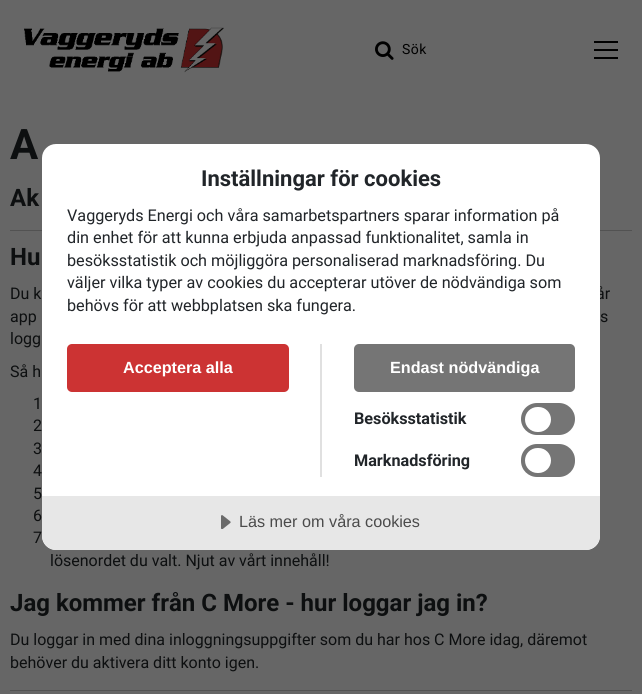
import math
import cairo

surface = cairo.ImageSurface(cairo.FORMAT_RGB24, 642, 694)
cr = cairo.Context(surface)
options = cairo.FontOptions()
options.set_hint_metrics(cairo.HINT_METRICS_OFF)
options.set_hint_style(cairo.HINT_STYLE_NONE)
cr.set_font_options(options)
cr.set_miter_limit(4)


def rgb(code):
    cr.set_source_rgb(*(v / 255 for v in bytes.fromhex(code[-6:])))


def tracked(x, y, s, letter, word):
    cr.move_to(x, y)
    for ch in s:
        cr.show_text(ch)
        cr.rel_move_to(letter + word * (ch == ' '), 0)


def rrect(x, y, w, h, r):
    cr.new_sub_path()
    for i, (u, v) in enumerate([(x + w - r, y + h - r), (x + r, y + h - r), (x + r, y + r), (x + w - r, y + r)]):
        cr.arc(u, v, r, i * math.pi / 2, (i + 1) * math.pi / 2)
    cr.close_path()


def image(path, x, y, w, h):
    cr.save()
    cr.set_source_surface(cairo.ImageSurface.create_from_png(path), x, y)
    cr.rectangle(x, y, w, h)
    cr.fill()
    cr.restore()


rgb("#666666")
cr.paint()
image("img/1.png", 24, 27, 200, 46)
image("img/2.png", 375, 41, 19, 19)
for x, y, w, h, color in [
    (594, 41, 24, 2, "#000000"),
    (594, 49, 24, 2, "#000000"),
    (594, 57, 24, 2, "#000000"),
    (10, 230, 622, 1, "#525252"),
    (10, 690, 622, 1, "#525252"),
]:
    rgb(color)
    cr.rectangle(x, y, w, h)
    cr.fill()
cr.select_font_face("Roboto")
cr.set_font_size(14)
rgb("#000000")
tracked(402, 54, "Sök", 0.5, 0)
cr.select_font_face("Roboto", cairo.FONT_SLANT_NORMAL, cairo.FONT_WEIGHT_BOLD)
cr.set_font_size(42)
rgb("#0d0f10")
cr.move_to(10, 159)
cr.show_text("A")
cr.set_font_size(24)
cr.move_to(10, 206)
cr.show_text("Ak")
cr.move_to(10, 265)
cr.show_text("Hu")
cr.select_font_face("Roboto")
cr.set_font_size(16)
for x, y, s in [
    (10, 299, "Du k"),
    (596, 299, "år"),
    (10, 322, "app"),
    (600, 322, "s"),
    (10, 344, "logg"),
    (10, 377, "Så h"),
    (33, 409, "1"),
    (33, 431, "2"),
    (33, 454, "3"),
    (33, 476, "4"),
    (33, 499, "5"),
    (33, 521, "6"),
    (33, 543, "7"),
    (50, 566, "lösenordet du valt. Njut av vårt innehåll!"),
]:
    cr.move_to(x, y)
    cr.show_text(s)
cr.select_font_face("Roboto", cairo.FONT_SLANT_NORMAL, cairo.FONT_WEIGHT_BOLD)
cr.set_font_size(24)
cr.move_to(10, 611)
cr.show_text("Jag kommer från C More - hur loggar jag in?")
cr.select_font_face("Roboto")
cr.set_font_size(16)
cr.move_to(10, 645)
cr.show_text("Du loggar in med dina inloggningsuppgifter som du har hos C More idag, däremot")
cr.move_to(10, 668)
cr.show_text("behöver du aktivera ditt konto igen.")
rgb("#ffffff")
rrect(42, 144, 558, 406, 14)
cr.fill()
cr.select_font_face("Roboto", cairo.FONT_SLANT_NORMAL, cairo.FONT_WEIGHT_BOLD)
cr.set_font_size(22)
rgb("#212529")
cr.move_to(201, 186)
cr.show_text("Inställningar för cookies")
cr.select_font_face("Roboto")
cr.set_font_size(16.2)
for x, y, s in [
    (67, 221, "Vaggeryds Energi och våra samarbetspartners sparar information på"),
    (67, 243, "din enhet för att kunna erbjuda anpassad funktionalitet, samla in"),
    (67, 266, "besöksstatistik och möjliggöra personaliserad marknadsföring. Du"),
    (67, 288, "väljer vilka typer av cookies du accepterar utöver de nödvändiga som"),
    (67, 311, "behövs för att webbplatsen ska fungera."),
]:
    cr.move_to(x, y)
    cr.show_text(s)
rgb("#e0e0e0")
cr.rectangle(320, 344, 2, 133)
cr.fill()
rgb("#cc3333")
rrect(67, 344, 222, 48, 5)
cr.fill()
cr.select_font_face("Liberation Sans", cairo.FONT_SLANT_NORMAL, cairo.FONT_WEIGHT_BOLD)
rgb("#ffffff")
cr.move_to(123, 373)
cr.show_text("Acceptera alla")
rgb("#757575")
rrect(354, 344, 221, 48, 5)
cr.fill()
rgb("#ffffff")
cr.move_to(390, 373)
cr.show_text("Endast nödvändiga")
cr.select_font_face("Roboto", cairo.FONT_SLANT_NORMAL, cairo.FONT_WEIGHT_BOLD)
rgb("#212529")
cr.move_to(354, 424)
cr.show_text("Besöksstatistik")
rgb("#757575")
rrect(521, 403, 54, 32, 16)
cr.fill()
rgb("#ffffff")
rrect(525, 407, 26, 25, 12.5)
cr.fill()
rgb("#212529")
cr.move_to(354, 466)
cr.show_text("Marknadsföring")
rgb("#757575")
rrect(521, 444, 54, 33, 16)
cr.fill()
rgb("#ffffff")
rrect(525, 448, 26, 25, 12.5)
cr.fill()
rgb("#e7e7e7")
cr.new_path()
cr.move_to(42, 496)
cr.line_to(600, 496)
cr.line_to(600, 536)
cr.curve_to(600, 543.5, 593.5, 550, 586, 550)
cr.line_to(56, 550)
cr.curve_to(48.5, 550, 42, 543.5, 42, 536)
cr.close_path()
cr.fill()
image("img/3.png", 221, 515, 10, 14)
cr.select_font_face("Liberation Sans")
rgb("#4b4b4b")
cr.move_to(239, 527)
cr.show_text("Läs mer om våra cookies")
surface.write_to_png("page.png")
